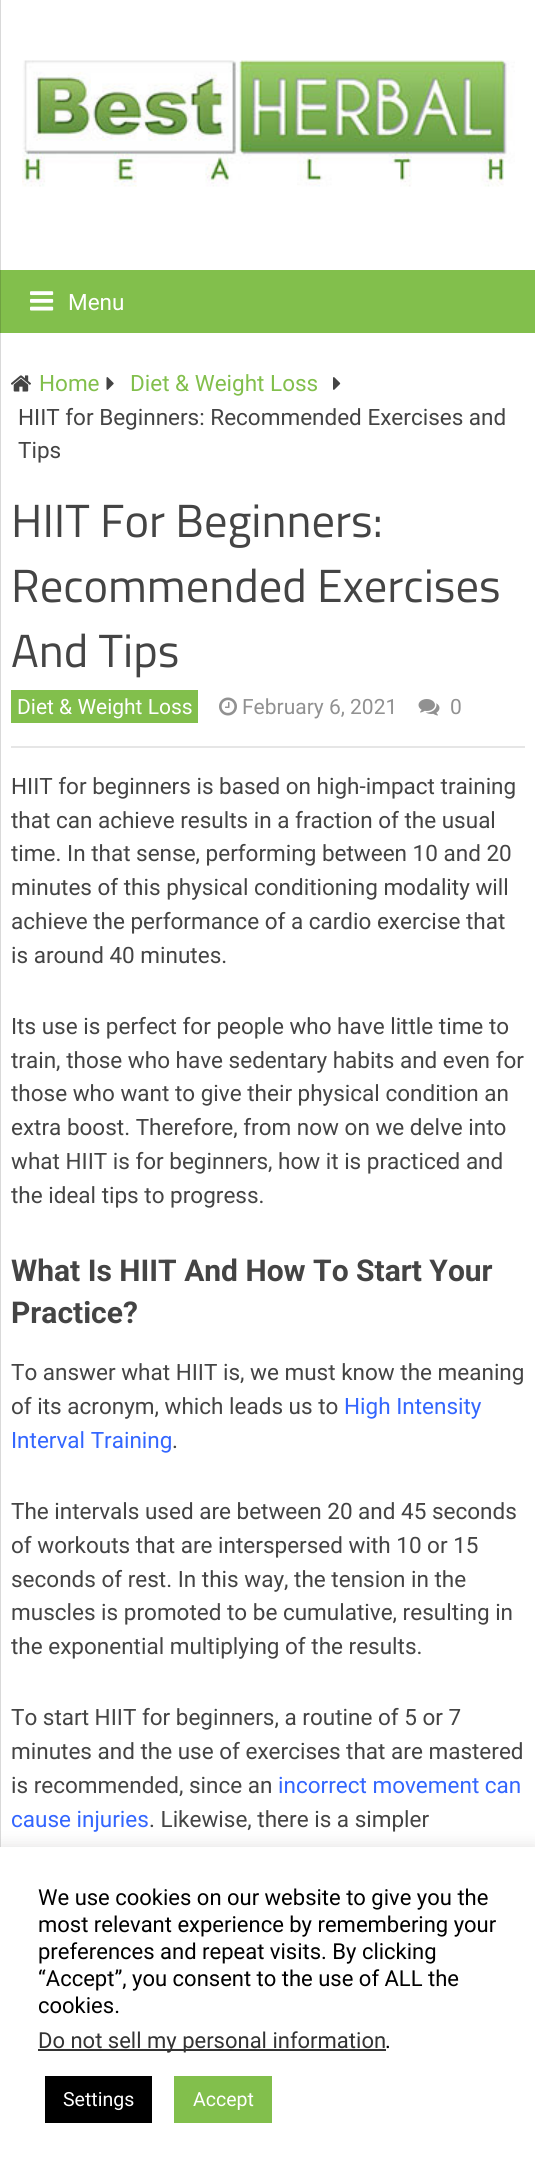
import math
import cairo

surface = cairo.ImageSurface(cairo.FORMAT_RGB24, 535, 2167)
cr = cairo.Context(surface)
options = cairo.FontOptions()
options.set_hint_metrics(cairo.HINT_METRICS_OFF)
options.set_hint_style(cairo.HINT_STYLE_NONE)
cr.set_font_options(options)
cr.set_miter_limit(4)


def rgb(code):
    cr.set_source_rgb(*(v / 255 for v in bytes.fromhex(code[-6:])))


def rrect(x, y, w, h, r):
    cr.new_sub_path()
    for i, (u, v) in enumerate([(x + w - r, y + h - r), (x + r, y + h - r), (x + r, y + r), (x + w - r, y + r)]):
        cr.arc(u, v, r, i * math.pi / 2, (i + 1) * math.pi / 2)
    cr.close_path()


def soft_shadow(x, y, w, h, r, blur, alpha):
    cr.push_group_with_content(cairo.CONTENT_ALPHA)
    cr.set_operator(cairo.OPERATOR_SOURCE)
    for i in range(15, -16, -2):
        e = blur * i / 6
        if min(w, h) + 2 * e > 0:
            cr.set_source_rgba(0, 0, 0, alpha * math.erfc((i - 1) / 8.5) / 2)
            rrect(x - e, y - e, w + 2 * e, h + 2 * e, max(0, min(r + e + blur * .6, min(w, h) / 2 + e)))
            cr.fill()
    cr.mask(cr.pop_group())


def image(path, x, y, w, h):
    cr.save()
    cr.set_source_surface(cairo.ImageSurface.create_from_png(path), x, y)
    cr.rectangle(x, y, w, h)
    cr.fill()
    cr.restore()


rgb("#ffffff")
cr.paint()
rgb("#d9d9d9")
cr.rectangle(0, 0, 1, 1847)
cr.fill()
image("img/1.png", 22, 60, 493, 127)
rgb("#82bf4c")
cr.rectangle(1, 270, 534, 63)
cr.fill()
rgb("#6fa241")
cr.rectangle(0, 270, 1, 63)
cr.fill()
image("img/2.png", 30, 291, 24, 20)
image("img/3.png", 11, 375, 20, 17)
image("img/4.png", 106, 377, 8, 13)
image("img/5.png", 333, 377, 8, 13)
rgb("#e6e6e6")
cr.rectangle(11, 746, 514, 2)
cr.fill()
rgb("#82bf4c")
cr.rectangle(11, 690, 187, 33)
cr.fill()
image("img/6.png", 219, 697, 18, 19)
image("img/7.png", 418, 699, 22, 17)
rgb("#acabab")
soft_shadow(0, 1845, 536, 321, 0, 7.5, 0.3)
for x, y, w, h, color in [
    (0, 1847, 535, 320, "#ffffff"),
    (38, 2049, 348, 2, "#333333"),
    (45, 2076, 107, 47, "#000000"),
    (174, 2076, 98, 47, "#82bf4c"),
]:
    rgb(color)
    cr.rectangle(x, y, w, h)
    cr.fill()
cr.select_font_face("Roboto")
cr.set_font_size(22.5)
rgb("#ffffff")
cr.move_to(68, 310)
cr.show_text("Menu")
rgb("#82bf4c")
cr.move_to(39, 391)
cr.show_text("Home")
cr.move_to(130, 391)
cr.show_text("Diet & Weight Loss")
rgb("#444444")
cr.move_to(18, 425)
cr.show_text("HIIT for Beginners: Recommended Exercises and")
cr.move_to(18, 458)
cr.show_text("Tips")
cr.select_font_face("Titillium Web")
cr.set_font_size(46.5)
for x, y, s in [
    (11, 537, "HIIT For Beginners:"),
    (11, 602, "Recommended Exercises"),
    (11, 667, "And Tips"),
]:
    cr.move_to(x, y)
    cr.show_text(s)
cr.select_font_face("Roboto")
cr.set_font_size(21)
rgb("#ffffff")
cr.move_to(17, 714)
cr.show_text("Diet & Weight Loss")
rgb("#919191")
cr.move_to(242, 714)
cr.show_text("February 6, 2021")
cr.move_to(450, 714)
cr.show_text("0")
cr.set_font_size(22.5)
rgb("#444444")
for x, y, s in [
    (11, 794, "HIIT for beginners is based on high-impact training"),
    (11, 828, "that can achieve results in a fraction of the usual"),
    (11, 861, "time. In that sense, performing between 10 and 20"),
    (11, 895, "minutes of this physical conditioning modality will"),
    (11, 929, "achieve the performance of a cardio exercise that"),
    (11, 963, "is around 40 minutes."),
    (11, 1034, "Its use is perfect for people who have little time to"),
    (11, 1068, "train, those who have sedentary habits and even for"),
    (11, 1101, "those who want to give their physical condition an"),
    (11, 1135, "extra boost. Therefore, from now on we delve into"),
    (11, 1169, "what HIIT is for beginners, how it is practiced and"),
    (11, 1203, "the ideal tips to progress."),
]:
    cr.move_to(x, y)
    cr.show_text(s)
cr.select_font_face("Roboto", cairo.FONT_SLANT_NORMAL, cairo.FONT_WEIGHT_BOLD)
cr.set_font_size(30)
cr.move_to(11, 1281)
cr.show_text("What Is HIIT And How To Start Your")
cr.move_to(11, 1323)
cr.show_text("Practice?")
cr.select_font_face("Roboto")
cr.set_font_size(22.5)
cr.move_to(11, 1380)
cr.show_text("To answer what HIIT is, we must know the meaning")
cr.move_to(11, 1414)
cr.show_text("of its acronym, which leads us to")
rgb("#3366ff")
cr.move_to(344, 1414)
cr.show_text("High Intensity")
cr.move_to(11, 1448)
cr.show_text("Interval Training")
rgb("#444444")
for x, y, s in [
    (172, 1448, "."),
    (11, 1519, "The intervals used are between 20 and 45 seconds"),
    (11, 1553, "of workouts that are interspersed with 10 or 15"),
    (11, 1587, "seconds of rest. In this way, the tension in the"),
    (11, 1620, "muscles is promoted to be cumulative, resulting in"),
    (11, 1654, "the exponential multiplying of the results."),
    (11, 1725, "To start HIIT for beginners, a routine of 5 or 7"),
    (11, 1759, "minutes and the use of exercises that are mastered"),
    (11, 1793, "is recommended, since an"),
]:
    cr.move_to(x, y)
    cr.show_text(s)
rgb("#3366ff")
cr.move_to(278, 1793)
cr.show_text("incorrect movement can")
cr.move_to(11, 1827)
cr.show_text("cause injuries")
rgb("#444444")
cr.move_to(149, 1827)
cr.show_text(". Likewise, there is a simpler")
cr.set_font_size(22)
rgb("#000000")
for x, y, s in [
    (38, 1905, "We use cookies on our website to give you the"),
    (38, 1932, "most relevant experience by remembering your"),
    (38, 1959, "preferences and repeat visits. By clicking"),
    (38, 1986, "“Accept”, you consent to the use of ALL the"),
    (38, 2013, "cookies."),
]:
    cr.move_to(x, y)
    cr.show_text(s)
rgb("#333333")
cr.move_to(38, 2048)
cr.show_text("Do not sell my personal information")
rgb("#000000")
cr.move_to(385, 2048)
cr.show_text(".")
cr.set_font_size(19.5)
rgb("#ffffff")
cr.move_to(63, 2106)
cr.show_text("Settings")
cr.move_to(193, 2106)
cr.show_text("Accept")
surface.write_to_png("page.png")
